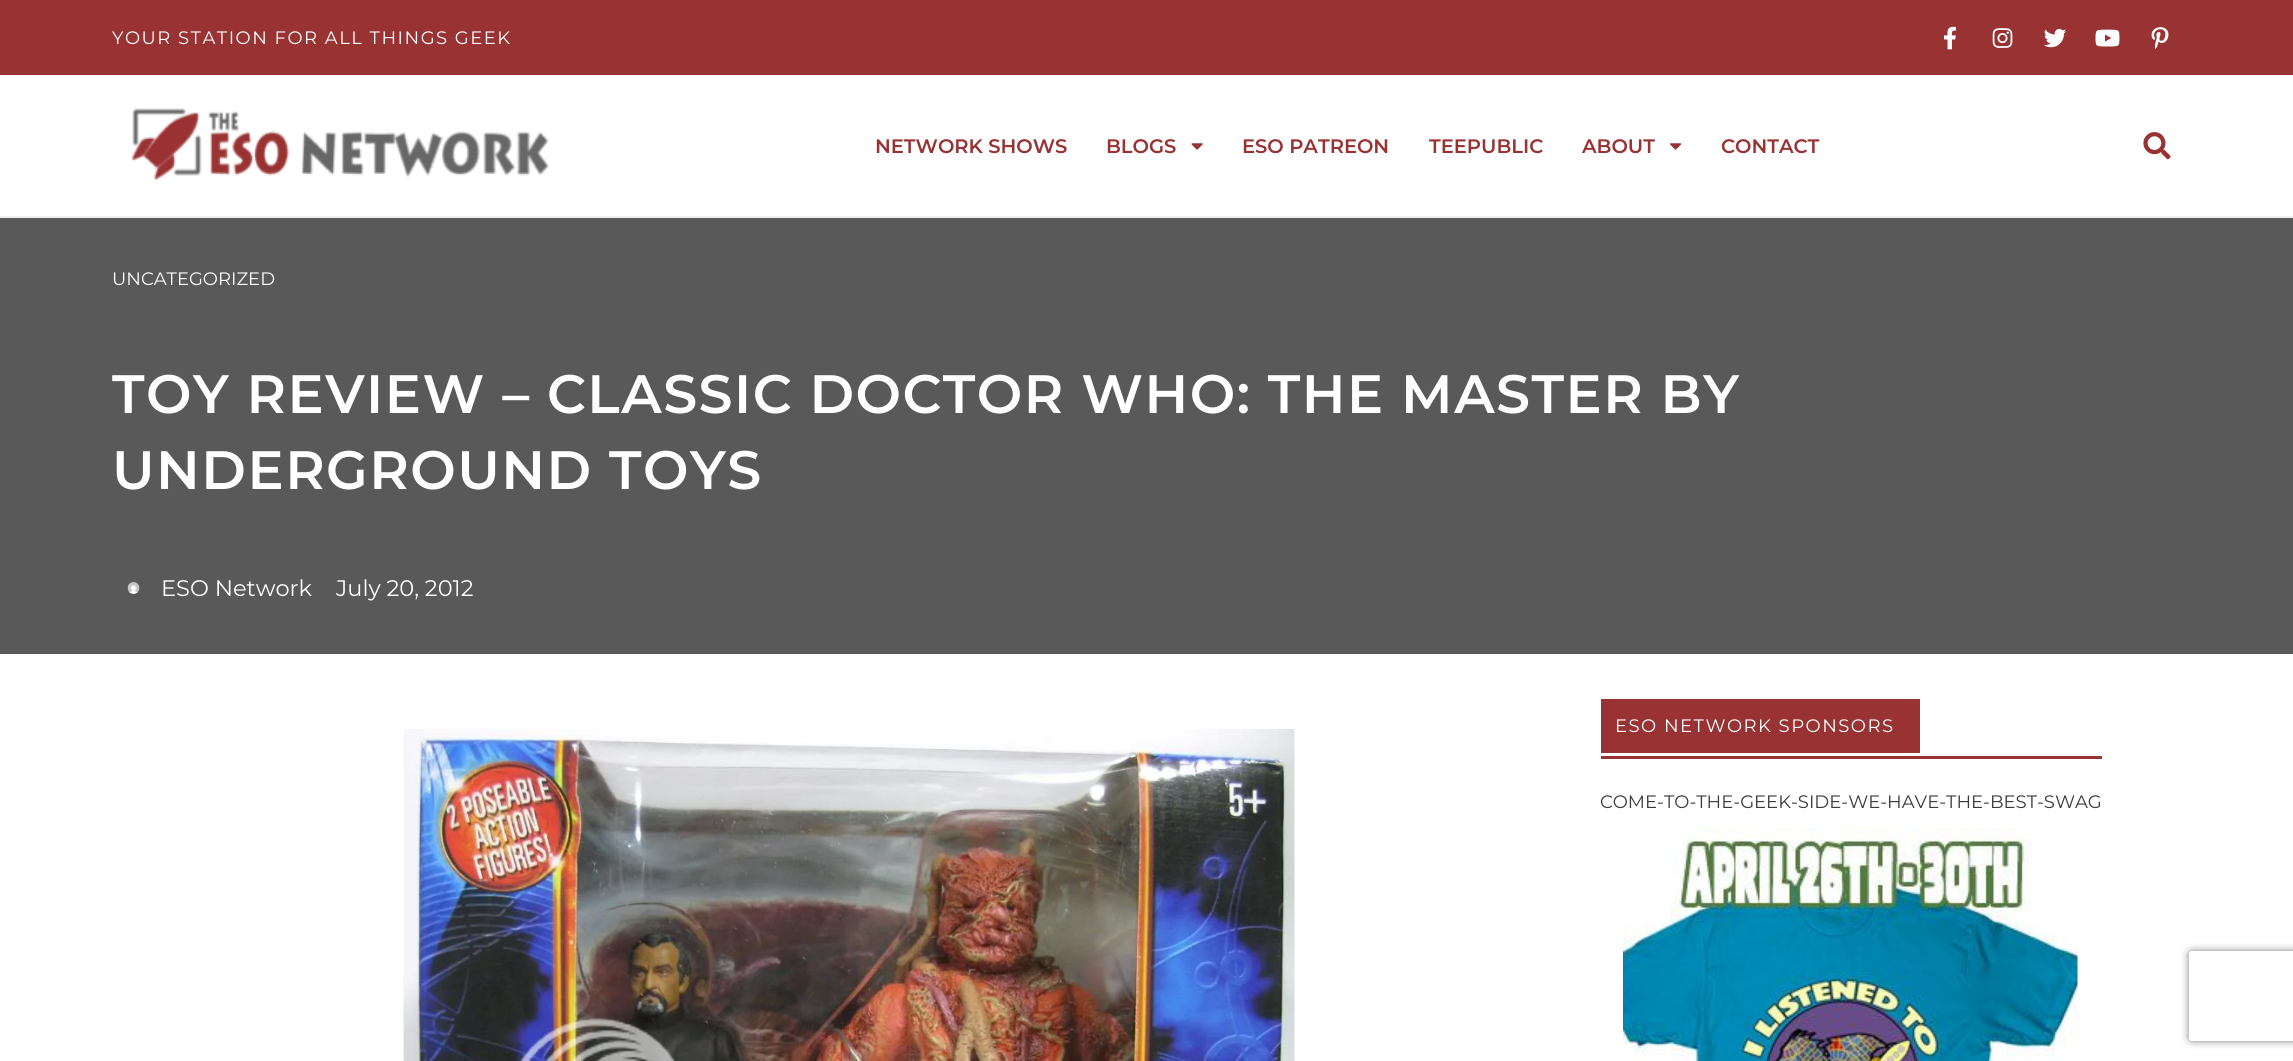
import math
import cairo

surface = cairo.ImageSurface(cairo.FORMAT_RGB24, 2293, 1061)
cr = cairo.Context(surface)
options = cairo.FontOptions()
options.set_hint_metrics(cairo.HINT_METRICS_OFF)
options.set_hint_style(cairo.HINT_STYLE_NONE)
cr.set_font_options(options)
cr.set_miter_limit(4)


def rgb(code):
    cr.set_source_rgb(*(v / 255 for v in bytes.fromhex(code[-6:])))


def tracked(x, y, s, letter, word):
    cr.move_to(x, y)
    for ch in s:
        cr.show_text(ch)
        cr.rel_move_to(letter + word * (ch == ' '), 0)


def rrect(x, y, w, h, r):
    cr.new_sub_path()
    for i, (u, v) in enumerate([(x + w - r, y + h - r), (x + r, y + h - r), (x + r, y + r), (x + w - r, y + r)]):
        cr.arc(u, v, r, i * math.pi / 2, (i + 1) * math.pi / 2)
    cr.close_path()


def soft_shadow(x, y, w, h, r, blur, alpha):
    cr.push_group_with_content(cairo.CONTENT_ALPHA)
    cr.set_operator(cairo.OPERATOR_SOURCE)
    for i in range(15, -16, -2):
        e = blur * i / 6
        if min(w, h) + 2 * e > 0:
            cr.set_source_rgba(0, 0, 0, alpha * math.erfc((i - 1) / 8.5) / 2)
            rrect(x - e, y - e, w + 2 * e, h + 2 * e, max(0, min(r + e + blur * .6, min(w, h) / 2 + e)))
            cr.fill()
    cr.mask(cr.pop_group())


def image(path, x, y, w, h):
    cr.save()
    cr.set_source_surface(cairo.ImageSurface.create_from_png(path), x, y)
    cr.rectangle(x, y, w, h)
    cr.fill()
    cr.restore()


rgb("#ffffff")
cr.paint()
rgb("#993333")
cr.rectangle(0, 0, 2293, 75)
cr.fill()
image("img/1.png", 1944, 26, 12, 24)
image("img/2.png", 1992, 28, 21, 20)
image("img/3.png", 2044, 28, 23, 20)
image("img/4.png", 2095, 29, 25, 18)
image("img/5.png", 2151, 27, 18, 22)
rgb("#eeeeee")
cr.rectangle(0, 216, 2293, 2)
cr.fill()
image("img/6.png", 130, 108, 419, 73)
image("img/7.png", 1191, 143, 12, 7)
image("img/8.png", 1670, 143, 12, 7)
image("img/9.png", 2143, 132, 28, 28)
rgb("#595959")
cr.rectangle(0, 218, 2293, 436)
cr.fill()
image("img/10.png", 127, 582, 13, 12)
image("img/11.png", 403, 729, 892, 332)
rgb("#993333")
cr.rectangle(1601, 699, 319, 54)
cr.fill()
cr.rectangle(1601, 756, 501, 3)
cr.fill()
image("img/12.png", 1623, 828, 455, 233)
cr.save()
cr.set_fill_rule(cairo.FILL_RULE_EVEN_ODD)
cr.new_path()
cr.move_to(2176, 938)
cr.line_to(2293, 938)
cr.line_to(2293, 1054)
cr.line_to(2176, 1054)
cr.close_path()
cr.move_to(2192, 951)
cr.line_to(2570, 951)
cr.curve_to(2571.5, 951, 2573, 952.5, 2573, 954)
cr.line_to(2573, 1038)
cr.curve_to(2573, 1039.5, 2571.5, 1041, 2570, 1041)
cr.line_to(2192, 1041)
cr.curve_to(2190.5, 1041, 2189, 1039.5, 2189, 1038)
cr.line_to(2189, 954)
cr.curve_to(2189, 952.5, 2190.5, 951, 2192, 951)
cr.close_path()
cr.clip()
rgb("#808080")
soft_shadow(2189, 951, 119, 90, 3, 4, 1)
cr.restore()
cr.select_font_face("Montserrat")
cr.set_font_size(18)
rgb("#ffffff")
tracked(112, 44, "YOUR STATION FOR ALL THINGS GEEK", 1.5, 0)
cr.select_font_face("Montserrat SemiBold")
cr.set_font_size(19.5)
rgb("#993333")
for x, y, s in [
    (875, 153, "NETWORK SHOWS"),
    (1106, 153, "BLOGS"),
    (1242, 153, "ESO PATREON"),
    (1429, 153, "TEEPUBLIC"),
    (1582, 153, "ABOUT"),
    (1721, 153, "CONTACT"),
]:
    cr.move_to(x, y)
    cr.show_text(s)
cr.select_font_face("Montserrat")
cr.set_font_size(18)
rgb("#ffffff")
cr.move_to(112, 285)
cr.show_text("UNCATEGORIZED")
cr.select_font_face("Montserrat SemiBold")
cr.set_font_size(54)
tracked(112, 413, "TOY REVIEW – CLASSIC DOCTOR WHO: THE MASTER BY", 1.5, 0)
tracked(112, 489, "UNDERGROUND TOYS", 1.5, 0)
cr.select_font_face("Montserrat")
cr.set_font_size(22.5)
cr.move_to(161, 596)
cr.show_text("ESO Network")
cr.move_to(336, 596)
cr.show_text("July 20, 2012")
cr.set_font_size(18)
tracked(1615, 732, "ESO NETWORK SPONSORS", 1.5, 0)
rgb("#3a3a3a")
cr.move_to(1600, 808)
cr.show_text("COME-TO-THE-GEEK-SIDE-WE-HAVE-THE-BEST-SWAG")
surface.write_to_png("page.png")
